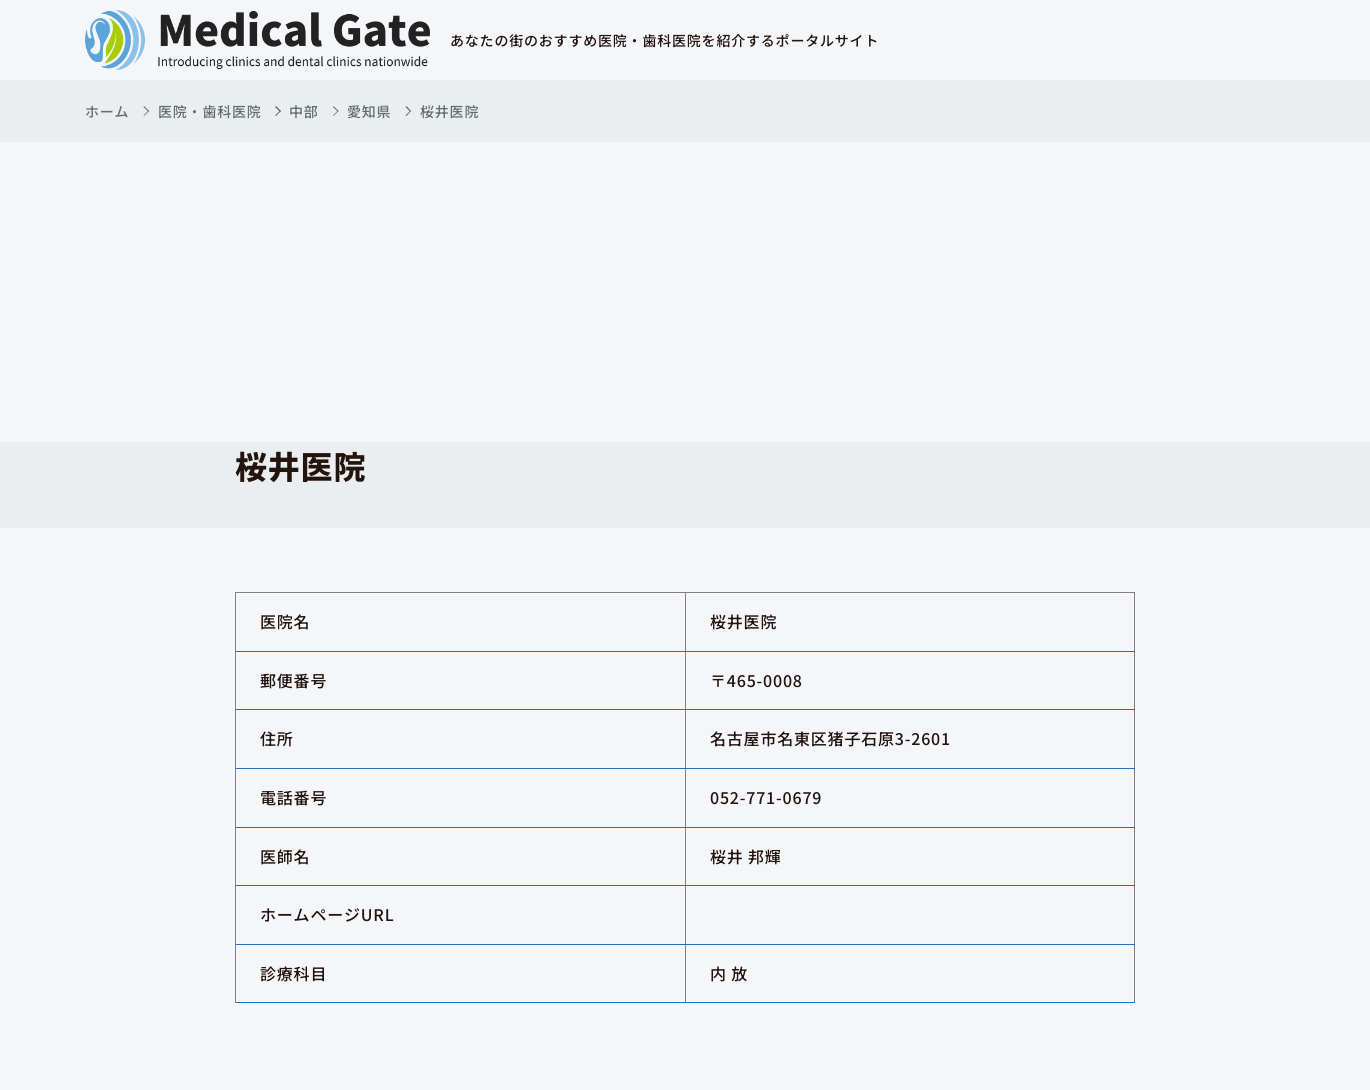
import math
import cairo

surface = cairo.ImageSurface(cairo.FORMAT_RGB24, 1370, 1090)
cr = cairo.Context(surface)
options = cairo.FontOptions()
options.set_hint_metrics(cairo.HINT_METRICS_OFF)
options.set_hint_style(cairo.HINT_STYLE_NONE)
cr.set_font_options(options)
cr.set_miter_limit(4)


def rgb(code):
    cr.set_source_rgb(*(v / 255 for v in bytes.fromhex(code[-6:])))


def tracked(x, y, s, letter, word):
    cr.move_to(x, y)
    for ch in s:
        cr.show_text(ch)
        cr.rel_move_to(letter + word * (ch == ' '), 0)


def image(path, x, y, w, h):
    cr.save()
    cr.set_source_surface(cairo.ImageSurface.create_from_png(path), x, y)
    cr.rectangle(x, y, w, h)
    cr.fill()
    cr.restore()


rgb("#f5f6fa")
cr.paint()
image("img/1.png", 85, 10, 345, 60)
rgb("#ebeef0")
cr.rectangle(0, 80, 1370, 62)
cr.fill()
rgb("#636e72")
cr.new_path()
cr.move_to(144, 106)
cr.line_to(149, 111)
cr.line_to(148.5, 112)
cr.line_to(143.5, 107)
cr.close_path()
cr.fill()
cr.new_path()
cr.move_to(148.5, 110.5)
cr.line_to(149, 111)
cr.line_to(144, 116)
cr.line_to(143.5, 115.5)
cr.close_path()
cr.fill()
cr.new_path()
cr.move_to(276, 106)
cr.line_to(281, 111)
cr.line_to(280, 112)
cr.line_to(275, 107)
cr.close_path()
cr.fill()
cr.new_path()
cr.move_to(280, 110.5)
cr.line_to(281, 111)
cr.line_to(276, 116)
cr.line_to(275, 115.5)
cr.close_path()
cr.fill()
cr.new_path()
cr.move_to(333.5, 106)
cr.line_to(338.5, 111)
cr.line_to(338, 112)
cr.line_to(333, 107)
cr.close_path()
cr.fill()
cr.new_path()
cr.move_to(338, 110.5)
cr.line_to(338.5, 111)
cr.line_to(333.5, 116)
cr.line_to(333, 115.5)
cr.close_path()
cr.fill()
cr.new_path()
cr.move_to(406.5, 106)
cr.line_to(411, 111)
cr.line_to(410.5, 112)
cr.line_to(405.5, 107)
cr.close_path()
cr.fill()
cr.new_path()
cr.move_to(410.5, 110.5)
cr.line_to(411, 111)
cr.line_to(406.5, 116)
cr.line_to(405.5, 115.5)
cr.close_path()
cr.fill()
for x, y, w, h, color in [
    (0, 442, 1370, 86, "#ebeef0"),
    (235, 592, 900, 1, "#808080"),
    (1134, 592, 1, 411, "#808080"),
    (685, 1002, 450, 1, "#1e73be"),
    (685, 944, 1, 59, "#808080"),
    (685, 944, 450, 1, "#1e73be"),
    (685, 885, 1, 60, "#808080"),
    (685, 885, 450, 1, "#1e73be"),
    (685, 827, 1, 59, "#808080"),
    (685, 827, 450, 1, "#1e73be"),
    (685, 768, 1, 60, "#808080"),
    (685, 768, 450, 1, "#1e73be"),
    (685, 709, 1, 60, "#808080"),
    (685, 709, 450, 1, "#1e73be"),
    (685, 651, 1, 59, "#808080"),
    (685, 651, 450, 1, "#1e73be"),
    (685, 592, 1, 60, "#808080"),
    (235, 1002, 451, 1, "#1e73be"),
    (235, 944, 1, 59, "#808080"),
    (235, 944, 451, 1, "#1e73be"),
    (235, 885, 1, 60, "#808080"),
    (235, 885, 451, 1, "#1e73be"),
    (235, 827, 1, 59, "#808080"),
    (235, 827, 451, 1, "#1e73be"),
    (235, 768, 1, 60, "#808080"),
    (235, 768, 451, 1, "#1e73be"),
    (235, 709, 1, 60, "#808080"),
    (235, 709, 451, 1, "#1e73be"),
    (235, 651, 1, 59, "#808080"),
    (235, 651, 451, 1, "#1e73be"),
    (235, 592, 1, 60, "#808080"),
]:
    rgb(color)
    cr.rectangle(x, y, w, h)
    cr.fill()
cr.select_font_face("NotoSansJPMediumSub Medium")
cr.set_font_size(14)
rgb("#24140e")
tracked(450, 46, "あなたの街のおすすめ医院・歯科医院を紹介するポータルサイト", 0.8, 0)
rgb("#636e72")
for x, y, s in [
    (85, 117, "ホーム"),
    (158, 117, "医院・歯科医院"),
    (289, 117, "中部"),
    (347, 117, "愛知県"),
    (420, 117, "桜井医院"),
]:
    tracked(x, y, s, 0.8, 0)
cr.select_font_face("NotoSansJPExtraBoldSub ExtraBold")
cr.set_font_size(32)
rgb("#24140e")
tracked(235, 479, "桜井医院", 0.8, 0)
cr.select_font_face("NotoSansJPMediumSub Medium")
cr.set_font_size(16)
for x, y, s in [
    (260, 628, "医院名"),
    (710, 628, "桜井医院"),
    (260, 687, "郵便番号"),
    (710, 687, "〒465-0008"),
    (260, 745, "住所"),
    (710, 745, "名古屋市名東区猪子石原3-2601"),
    (260, 804, "電話番号"),
    (710, 804, "052-771-0679"),
    (260, 863, "医師名"),
    (710, 863, "桜井 邦輝"),
    (260, 921, "ホームページURL"),
    (260, 980, "診療科目"),
    (710, 980, "内 放"),
]:
    tracked(x, y, s, 0.8, 0)
surface.write_to_png("page.png")
